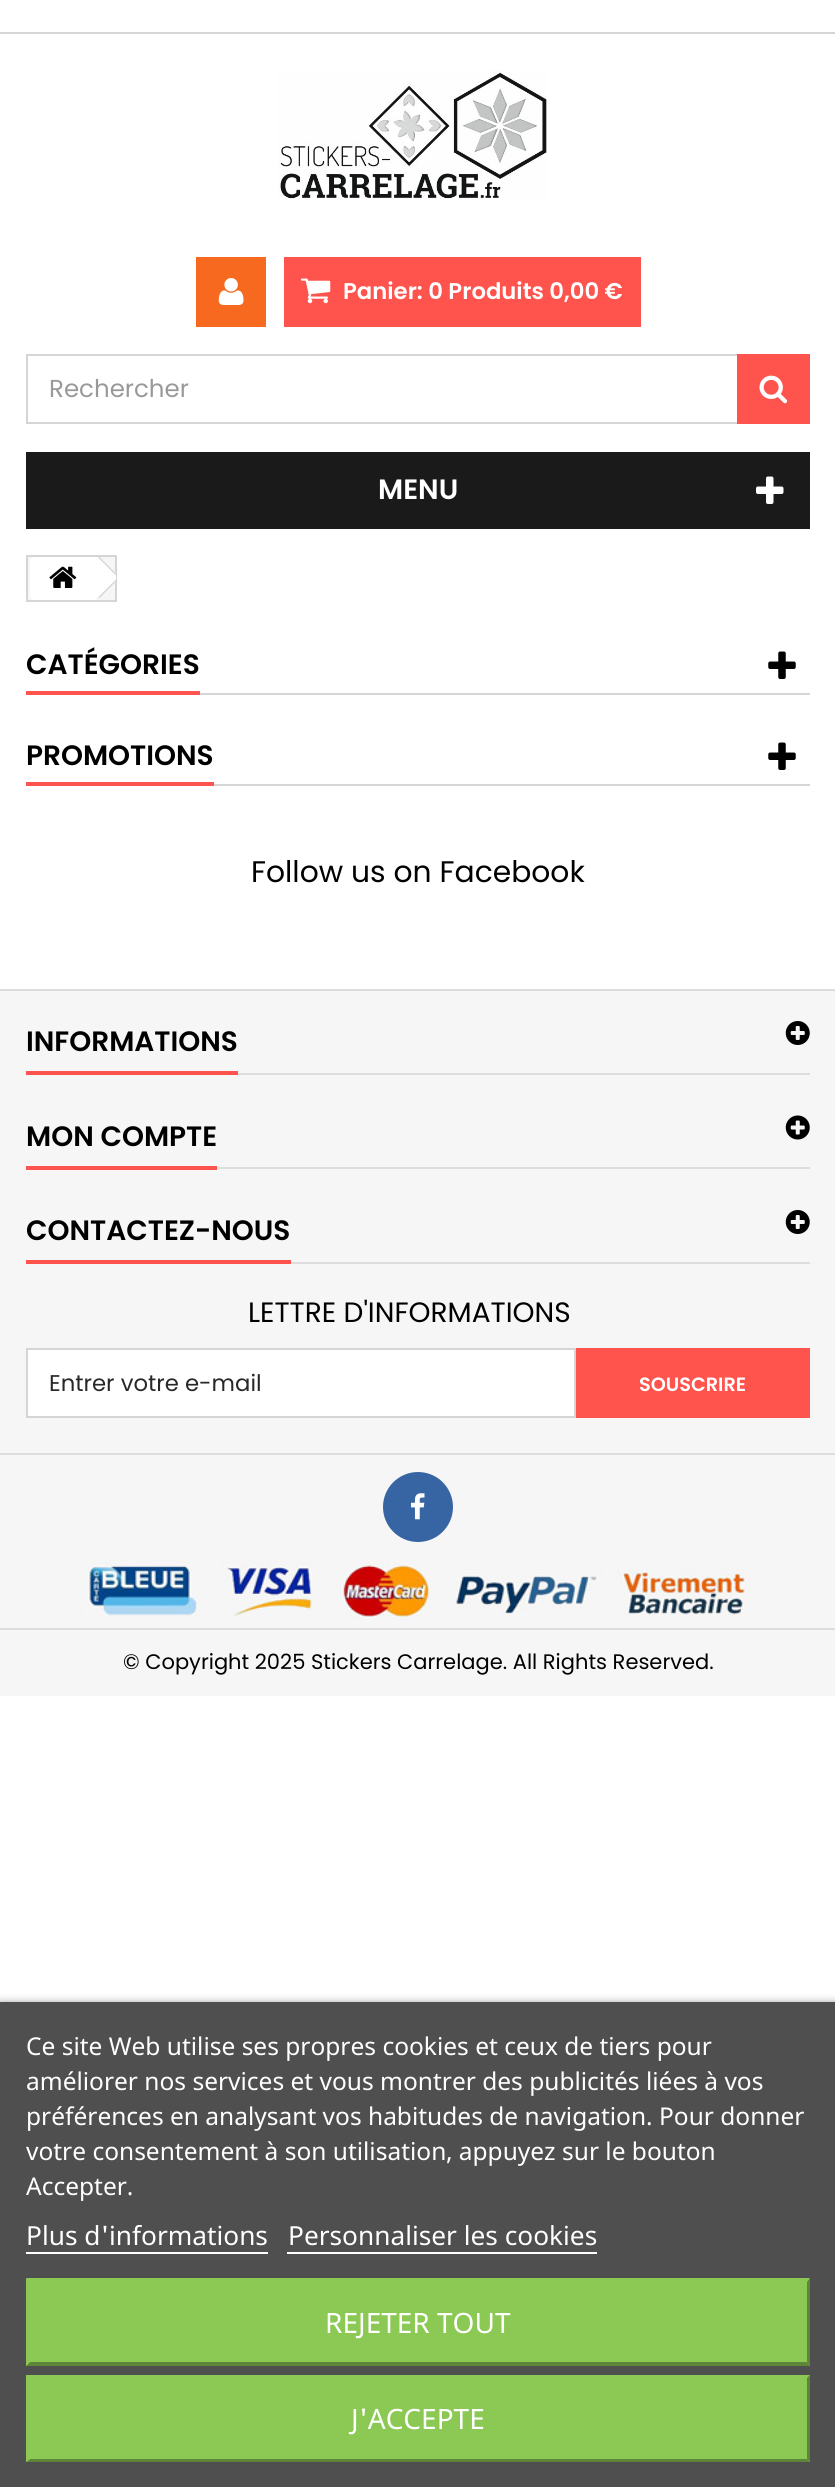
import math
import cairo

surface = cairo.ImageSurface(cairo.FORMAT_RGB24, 835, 2487)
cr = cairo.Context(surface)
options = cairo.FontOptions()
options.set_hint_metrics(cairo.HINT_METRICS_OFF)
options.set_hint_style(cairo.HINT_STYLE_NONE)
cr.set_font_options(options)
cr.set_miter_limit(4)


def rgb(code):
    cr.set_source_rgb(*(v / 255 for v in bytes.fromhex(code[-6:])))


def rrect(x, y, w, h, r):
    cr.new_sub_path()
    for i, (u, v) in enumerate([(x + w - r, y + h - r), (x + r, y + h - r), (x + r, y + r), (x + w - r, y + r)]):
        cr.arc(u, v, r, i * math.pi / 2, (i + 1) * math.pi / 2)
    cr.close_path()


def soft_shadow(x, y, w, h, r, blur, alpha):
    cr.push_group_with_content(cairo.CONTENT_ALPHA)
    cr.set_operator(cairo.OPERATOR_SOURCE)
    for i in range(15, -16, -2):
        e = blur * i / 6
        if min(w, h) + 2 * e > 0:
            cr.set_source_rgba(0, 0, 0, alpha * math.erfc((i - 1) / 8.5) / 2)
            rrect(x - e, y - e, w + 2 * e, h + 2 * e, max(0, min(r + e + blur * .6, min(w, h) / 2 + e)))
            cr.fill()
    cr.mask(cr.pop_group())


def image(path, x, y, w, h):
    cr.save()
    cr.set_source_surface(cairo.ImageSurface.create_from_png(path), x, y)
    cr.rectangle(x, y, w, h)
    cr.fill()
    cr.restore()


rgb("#ffffff")
cr.paint()
rgb("#d6d4d4")
cr.rectangle(0, 32, 835, 2)
cr.fill()
image("img/1.png", 278, 70, 269, 129)
rgb("#f6691e")
cr.rectangle(196, 257, 70, 70)
cr.fill()
image("img/2.png", 218, 278, 26, 27)
rgb("#ff544d")
cr.rectangle(284, 257, 357, 70)
cr.fill()
image("img/3.png", 301, 278, 30, 26)
cr.rectangle(27, 355, 782, 68)
rgb("#d6d4d4")
cr.stroke()
rgb("#ff544d")
cr.rectangle(737, 354, 73, 70)
cr.fill()
image("img/4.png", 759, 375, 29, 29)
rgb("#1b1a1b")
cr.rectangle(26, 452, 784, 77)
cr.fill()
image("img/5.png", 756, 476, 28, 28)
rgb("#f6f6f6")
cr.rectangle(27, 556, 89, 45)
cr.fill_preserve()
rgb("#d6d4d4")
cr.stroke()
rgb("#ffffff")
cr.new_path()
cr.move_to(35, 557)
cr.line_to(96, 557)
cr.line_to(96, 600)
cr.line_to(35, 600)
cr.curve_to(32, 600, 30, 598, 30, 595)
cr.line_to(30, 562)
cr.curve_to(30, 559, 32, 557, 35, 557)
cr.close_path()
cr.fill()
image("img/6.png", 49, 566, 28, 22)
cr.save()
cr.rectangle(28, 557, 88, 43)
cr.clip()
cr.new_path()
cr.move_to(100, 558)
cr.line_to(118, 575)
cr.curve_to(119, 576, 119, 579, 118, 580)
cr.line_to(100, 597)
cr.curve_to(99, 599, 97, 599, 96, 597)
cr.line_to(78, 580)
cr.curve_to(77, 579, 77, 576, 78, 575)
cr.line_to(96, 558)
cr.curve_to(97, 556, 99, 556, 100, 558)
cr.close_path()
cr.fill()
rgb("#d6d4d4")
cr.new_path()
cr.move_to(99, 556.5)
cr.line_to(119, 576.5)
cr.line_to(118, 577.5)
cr.line_to(98, 557.5)
cr.close_path()
cr.move_to(118, 577.5)
cr.line_to(119, 578.5)
cr.line_to(99, 598.5)
cr.line_to(98, 597.5)
cr.close_path()
cr.fill()
cr.restore()
rgb("#d6d4d4")
cr.rectangle(200, 693, 610, 2)
cr.fill()
rgb("#ff544d")
cr.rectangle(26, 691, 174, 4)
cr.fill()
image("img/7.png", 768, 651, 28, 28)
rgb("#d6d4d4")
cr.rectangle(214, 784, 596, 2)
cr.fill()
rgb("#ff544d")
cr.rectangle(26, 782, 188, 4)
cr.fill()
image("img/7.png", 768, 742, 28, 28)
for x, y, w, h, color in [
    (0, 991, 835, 705, "#f6f6f6"),
    (0, 989, 835, 2, "#dddddd"),
    (238, 1073, 572, 2, "#dddddd"),
    (26, 1071, 212, 4, "#ff544d"),
]:
    rgb(color)
    cr.rectangle(x, y, w, h)
    cr.fill()
image("img/8.png", 785, 1021, 25, 24)
rgb("#dddddd")
cr.rectangle(217, 1167, 593, 2)
cr.fill()
rgb("#ff544d")
cr.rectangle(26, 1166, 191, 4)
cr.fill()
image("img/9.png", 785, 1115, 25, 25)
rgb("#dddddd")
cr.rectangle(291, 1262, 519, 2)
cr.fill()
rgb("#ff544d")
cr.rectangle(26, 1260, 265, 4)
cr.fill()
image("img/8.png", 785, 1210, 25, 24)
rgb("#ffffff")
cr.rectangle(27, 1349, 548, 68)
cr.fill_preserve()
rgb("#d6d4d4")
cr.stroke()
rgb("#ff544d")
cr.rectangle(576, 1348, 234, 70)
cr.fill()
rgb("#dddddd")
cr.rectangle(0, 1453, 835, 2)
cr.fill()
rgb("#3765a3")
cr.arc(418, 1507, 35, 0, 2 * math.pi)
cr.fill()
image("img/10.png", 411, 1493, 14, 27)
rgb("#dddddd")
cr.rectangle(0, 1628, 835, 2)
cr.fill()
rgb("#707070")
soft_shadow(0, 2004, 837, 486, 0, 4.5, 1)
for x, y, w, h, color in [
    (0, 2002, 835, 485, "#4f4f4f"),
    (26, 2252, 242, 2, "#ffffff"),
    (287, 2252, 310, 2, "#ffffff"),
    (26, 2279, 784, 87, "#8bc954"),
]:
    rgb(color)
    cr.rectangle(x, y, w, h)
    cr.fill()
cr.new_path()
cr.move_to(26, 2278)
cr.line_to(810, 2278)
cr.line_to(807, 2282)
cr.line_to(30, 2282)
cr.close_path()
cr.fill()
rgb("#5d8638")
cr.new_path()
cr.move_to(810, 2278)
cr.line_to(810, 2366)
cr.line_to(807, 2362)
cr.line_to(807, 2282)
cr.close_path()
cr.fill()
cr.new_path()
cr.move_to(810, 2366)
cr.line_to(26, 2366)
cr.line_to(30, 2362)
cr.line_to(807, 2362)
cr.close_path()
cr.fill()
rgb("#8bc954")
cr.new_path()
cr.move_to(26, 2366)
cr.line_to(26, 2278)
cr.line_to(30, 2282)
cr.line_to(30, 2362)
cr.close_path()
cr.fill()
cr.rectangle(26, 2375, 784, 87)
cr.fill()
rgb("#5d8638")
cr.new_path()
cr.move_to(810, 2375)
cr.line_to(810, 2462)
cr.line_to(807, 2459)
cr.line_to(807, 2378)
cr.close_path()
cr.fill()
cr.new_path()
cr.move_to(810, 2462)
cr.line_to(26, 2462)
cr.line_to(30, 2459)
cr.line_to(807, 2459)
cr.close_path()
cr.fill()
rgb("#8bc954")
cr.new_path()
cr.move_to(26, 2462)
cr.line_to(26, 2375)
cr.line_to(30, 2378)
cr.line_to(30, 2459)
cr.close_path()
cr.fill()
image("img/11.png", 86, 1559, 664, 62)
cr.select_font_face("Poppins SemiBold")
cr.set_font_size(22.75)
rgb("#ffffff")
cr.move_to(343, 299)
cr.show_text("Panier: 0 Produits 0,00 €")
cr.select_font_face("Poppins")
cr.set_font_size(24.5)
rgb("#999999")
cr.move_to(49, 397)
cr.show_text("Rechercher")
cr.select_font_face("Poppins SemiBold")
cr.set_font_size(28)
rgb("#ffffff")
cr.move_to(378, 499)
cr.show_text("MENU")
rgb("#000000")
cr.move_to(26, 674)
cr.show_text("CATÉGORIES")
cr.move_to(26, 765)
cr.show_text("PROMOTIONS")
cr.select_font_face("Poppins")
cr.set_font_size(29.75)
cr.move_to(251, 882)
cr.show_text("Follow us on Facebook")
cr.select_font_face("Poppins SemiBold")
cr.set_font_size(28)
for x, y, s in [
    (26, 1051, "INFORMATIONS"),
    (26, 1146, "MON COMPTE"),
    (26, 1240, "CONTACTEZ-NOUS"),
]:
    cr.move_to(x, y)
    cr.show_text(s)
cr.select_font_face("Poppins")
cr.move_to(248, 1322)
cr.show_text("LETTRE D'INFORMATIONS")
cr.set_font_size(22.75)
rgb("#282828")
cr.move_to(49, 1391)
cr.show_text("Entrer votre e-mail")
cr.select_font_face("Poppins SemiBold")
cr.set_font_size(19.25)
rgb("#ffffff")
cr.move_to(639, 1391)
cr.show_text("SOUSCRIRE")
cr.select_font_face("Poppins")
cr.set_font_size(21)
rgb("#000000")
cr.move_to(123, 1669)
cr.show_text("© Copyright 2025 Stickers Carrelage. All Rights Reserved.")
cr.select_font_face("Noto Sans")
cr.set_font_size(24.5)
rgb("#ffffff")
for x, y, s in [
    (26, 2055, "Ce site Web utilise ses propres cookies et ceux de tiers pour"),
    (26, 2090, "améliorer nos services et vous montrer des publicités liées à vos"),
    (26, 2125, "préférences en analysant vos habitudes de navigation. Pour donner"),
    (26, 2160, "votre consentement à son utilisation, appuyez sur le bouton"),
    (26, 2195, "Accepter."),
]:
    cr.move_to(x, y)
    cr.show_text(s)
cr.set_font_size(26.25)
cr.move_to(26, 2245)
cr.show_text("Plus d'informations")
cr.move_to(288, 2245)
cr.show_text("Personnaliser les cookies")
cr.set_font_size(28)
cr.move_to(325, 2333)
cr.show_text("REJETER TOUT")
cr.move_to(351, 2429)
cr.show_text("J'ACCEPTE")
surface.write_to_png("page.png")
